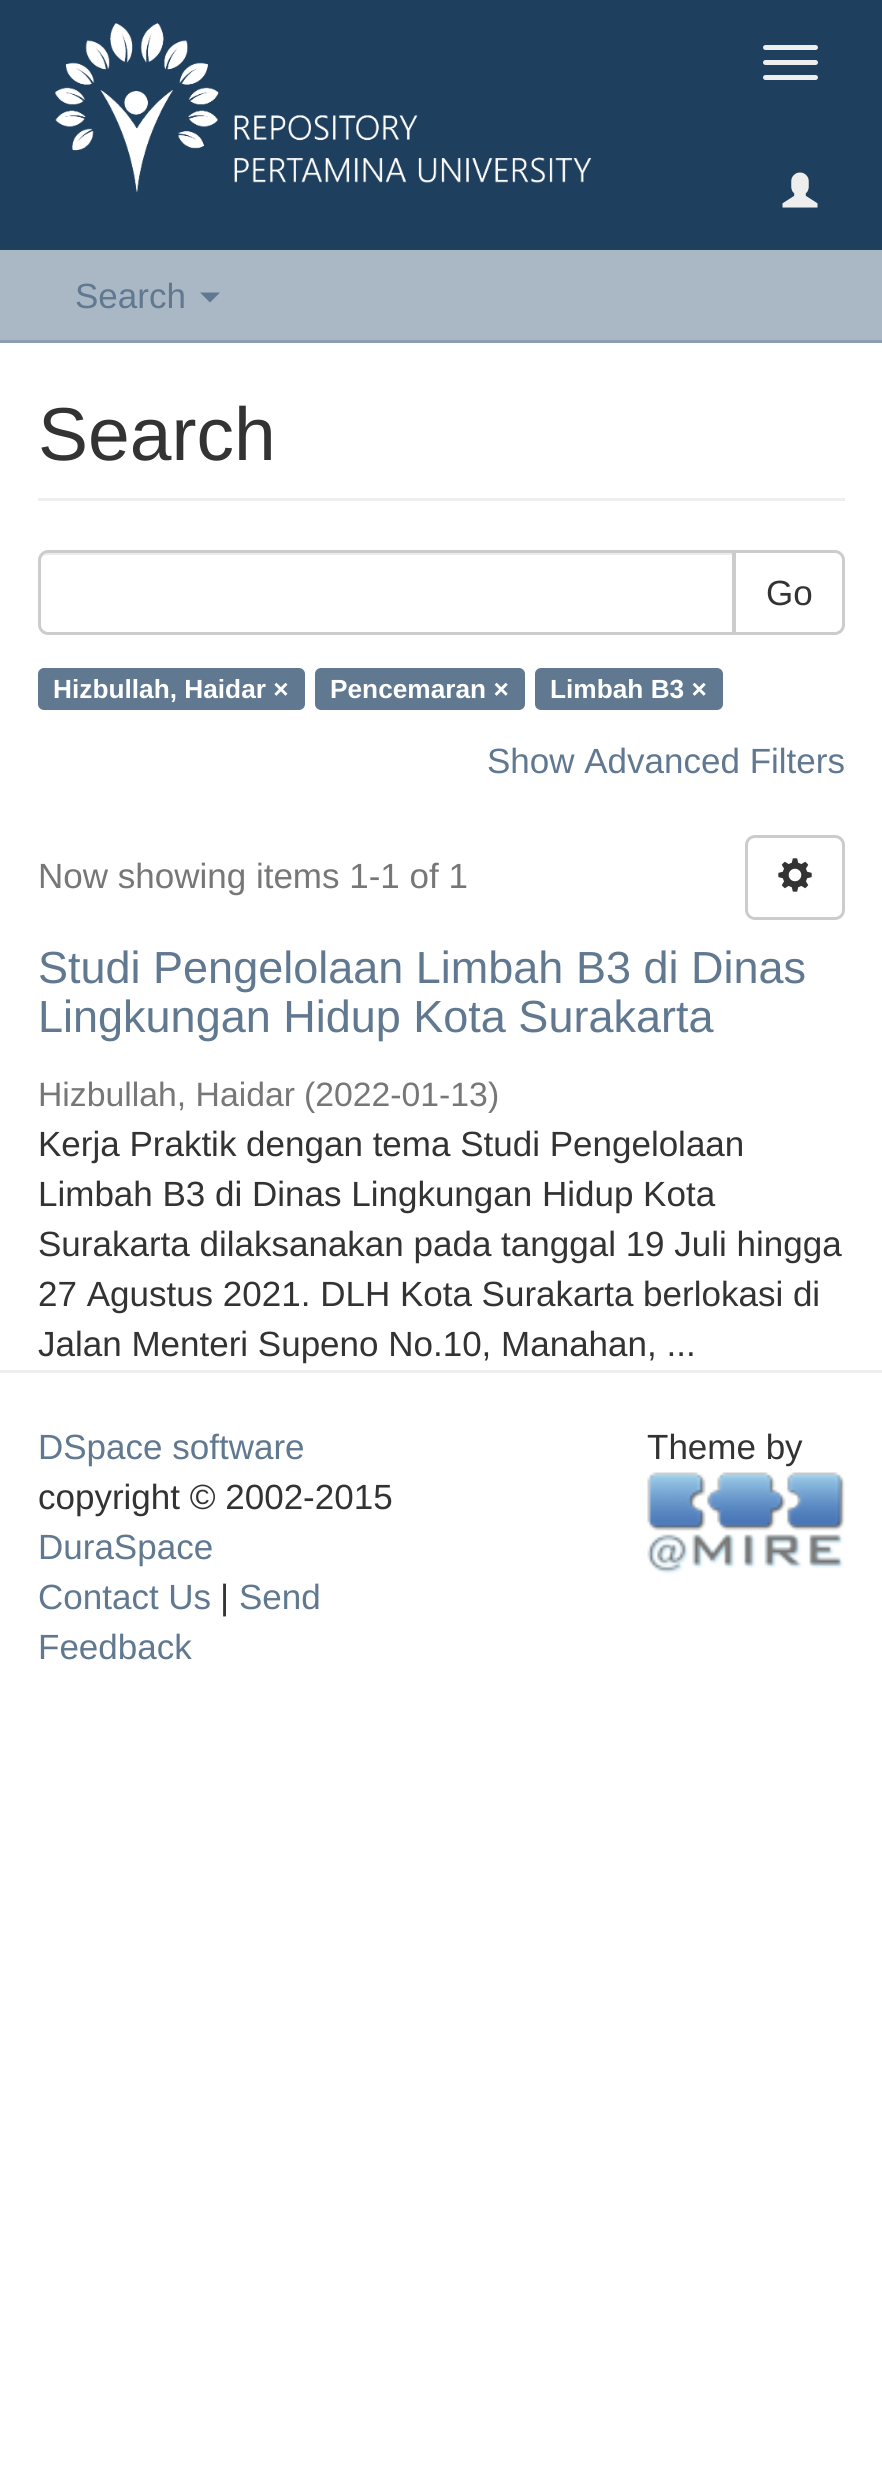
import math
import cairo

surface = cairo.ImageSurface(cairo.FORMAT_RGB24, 882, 2466)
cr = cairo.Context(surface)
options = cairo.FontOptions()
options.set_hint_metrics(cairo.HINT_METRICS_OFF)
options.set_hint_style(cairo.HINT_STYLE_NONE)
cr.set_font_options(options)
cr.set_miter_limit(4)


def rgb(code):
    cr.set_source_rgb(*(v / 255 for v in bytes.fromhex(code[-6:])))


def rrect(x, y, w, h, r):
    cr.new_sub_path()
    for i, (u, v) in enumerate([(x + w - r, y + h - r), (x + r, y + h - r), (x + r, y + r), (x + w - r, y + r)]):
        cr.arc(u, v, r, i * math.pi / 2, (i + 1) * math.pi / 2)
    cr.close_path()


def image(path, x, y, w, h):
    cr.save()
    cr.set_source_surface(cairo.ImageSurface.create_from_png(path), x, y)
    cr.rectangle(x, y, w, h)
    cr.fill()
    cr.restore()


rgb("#ffffff")
cr.paint()
rgb("#1f3f5e")
cr.rectangle(0, 0, 882, 250)
cr.fill()
image("img/1.png", 54, 23, 538, 170)
rgb("#eeeeee")
rrect(763, 45, 55, 5, 2.5)
cr.fill()
rrect(763, 60, 55, 5, 2.5)
cr.fill()
rrect(763, 75, 55, 5, 2.5)
cr.fill()
image("img/2.png", 782, 172, 36, 36)
rgb("#aab8c6")
cr.rectangle(0, 250, 882, 90)
cr.fill()
rgb("#8b9eb2")
cr.rectangle(0, 340, 882, 3)
cr.fill()
rgb("#607890")
cr.new_path()
cr.move_to(200, 292.5)
cr.line_to(220, 292.5)
cr.line_to(210, 302.5)
cr.close_path()
cr.fill()
rgb("#eeeeee")
cr.rectangle(38, 498, 807, 3)
cr.fill()
cr.new_path()
cr.move_to(734.5, 551.5)
cr.line_to(835, 551.5)
cr.curve_to(839.5, 551.5, 843.5, 555.5, 843.5, 560)
cr.line_to(843.5, 625)
cr.curve_to(843.5, 629.5, 839.5, 633.5, 835, 633.5)
cr.line_to(734.5, 633.5)
cr.close_path()
rgb("#cccccc")
cr.set_line_width(3)
cr.stroke()
rgb("#ffffff")
cr.new_path()
cr.move_to(48, 550)
cr.line_to(735, 550)
cr.line_to(735, 635)
cr.line_to(48, 635)
cr.curve_to(42.5, 635, 38, 630.5, 38, 625)
cr.line_to(38, 560)
cr.curve_to(38, 554.5, 42.5, 550, 48, 550)
cr.close_path()
cr.fill()
rgb("#ececec")
cr.new_path()
cr.move_to(48, 555)
cr.line_to(732, 555)
cr.line_to(732, 633)
cr.line_to(733, 633)
cr.line_to(733, 553)
cr.line_to(48, 553)
cr.curve_to(44, 553, 40, 557, 40, 561)
cr.line_to(40, 562)
cr.curve_to(40, 558, 43, 555, 48, 555)
cr.close_path()
cr.fill()
cr.new_path()
cr.move_to(48, 551.5)
cr.line_to(733.5, 551.5)
cr.line_to(733.5, 633.5)
cr.line_to(48, 633.5)
cr.curve_to(43.5, 633.5, 39.5, 629.5, 39.5, 625)
cr.line_to(39.5, 560)
cr.curve_to(39.5, 555.5, 43.5, 551.5, 48, 551.5)
cr.close_path()
rgb("#cccccc")
cr.stroke()
rgb("#607890")
rrect(38, 668, 267, 42, 6)
cr.fill()
rrect(315, 668, 210, 42, 6)
cr.fill()
rrect(535, 668, 188, 42, 6)
cr.fill()
rrect(746.5, 836.5, 97, 82, 8.5)
rgb("#cccccc")
cr.stroke()
image("img/3.png", 778, 858, 34, 34)
rgb("#eeeeee")
cr.rectangle(0, 1370, 882, 3)
cr.fill()
image("img/4.png", 647, 1472, 198, 103)
cr.select_font_face("Liberation Sans")
cr.set_font_size(35)
rgb("#607890")
cr.move_to(75, 308)
cr.show_text("Search")
cr.set_font_size(75)
rgb("#333333")
cr.move_to(38, 460)
cr.show_text("Search")
cr.set_font_size(35)
cr.move_to(766, 605)
cr.show_text("Go")
cr.select_font_face("Liberation Sans", cairo.FONT_SLANT_NORMAL, cairo.FONT_WEIGHT_BOLD)
cr.set_font_size(26.25)
rgb("#ffffff")
for x, y, s in [
    (53, 698, "Hizbullah, Haidar ×"),
    (330, 698, "Pencemaran ×"),
    (550, 698, "Limbah B3 ×"),
]:
    cr.move_to(x, y)
    cr.show_text(s)
cr.select_font_face("Liberation Sans")
cr.set_font_size(35)
rgb("#607890")
cr.move_to(487, 773)
cr.show_text("Show Advanced Filters")
rgb("#777777")
cr.move_to(38, 888)
cr.show_text("Now showing items 1-1 of 1")
cr.set_font_size(45)
rgb("#607890")
cr.move_to(38, 983)
cr.show_text("Studi Pengelolaan Limbah B3 di Dinas")
cr.move_to(38, 1032)
cr.show_text("Lingkungan Hidup Kota Surakarta")
cr.set_font_size(33.75)
rgb("#777777")
cr.move_to(38, 1106)
cr.show_text("Hizbullah, Haidar")
cr.move_to(304, 1106)
cr.show_text("(2022-01-13)")
cr.set_font_size(35)
rgb("#333333")
for x, y, s in [
    (38, 1156, "Kerja Praktik dengan tema Studi Pengelolaan"),
    (38, 1206, "Limbah B3 di Dinas Lingkungan Hidup Kota"),
    (38, 1256, "Surakarta dilaksanakan pada tanggal 19 Juli hingga"),
    (38, 1306, "27 Agustus 2021. DLH Kota Surakarta berlokasi di"),
    (38, 1356, "Jalan Menteri Supeno No.10, Manahan, ..."),
]:
    cr.move_to(x, y)
    cr.show_text(s)
rgb("#607890")
cr.move_to(38, 1459)
cr.show_text("DSpace software")
rgb("#333333")
cr.move_to(38, 1509)
cr.show_text("copyright © 2002-2015")
rgb("#607890")
cr.move_to(38, 1559)
cr.show_text("DuraSpace")
cr.move_to(38, 1609)
cr.show_text("Contact Us")
rgb("#333333")
cr.move_to(220, 1609)
cr.show_text("|")
rgb("#607890")
cr.move_to(239, 1609)
cr.show_text("Send")
cr.move_to(38, 1659)
cr.show_text("Feedback")
rgb("#333333")
cr.move_to(647, 1459)
cr.show_text("Theme by")
surface.write_to_png("page.png")
